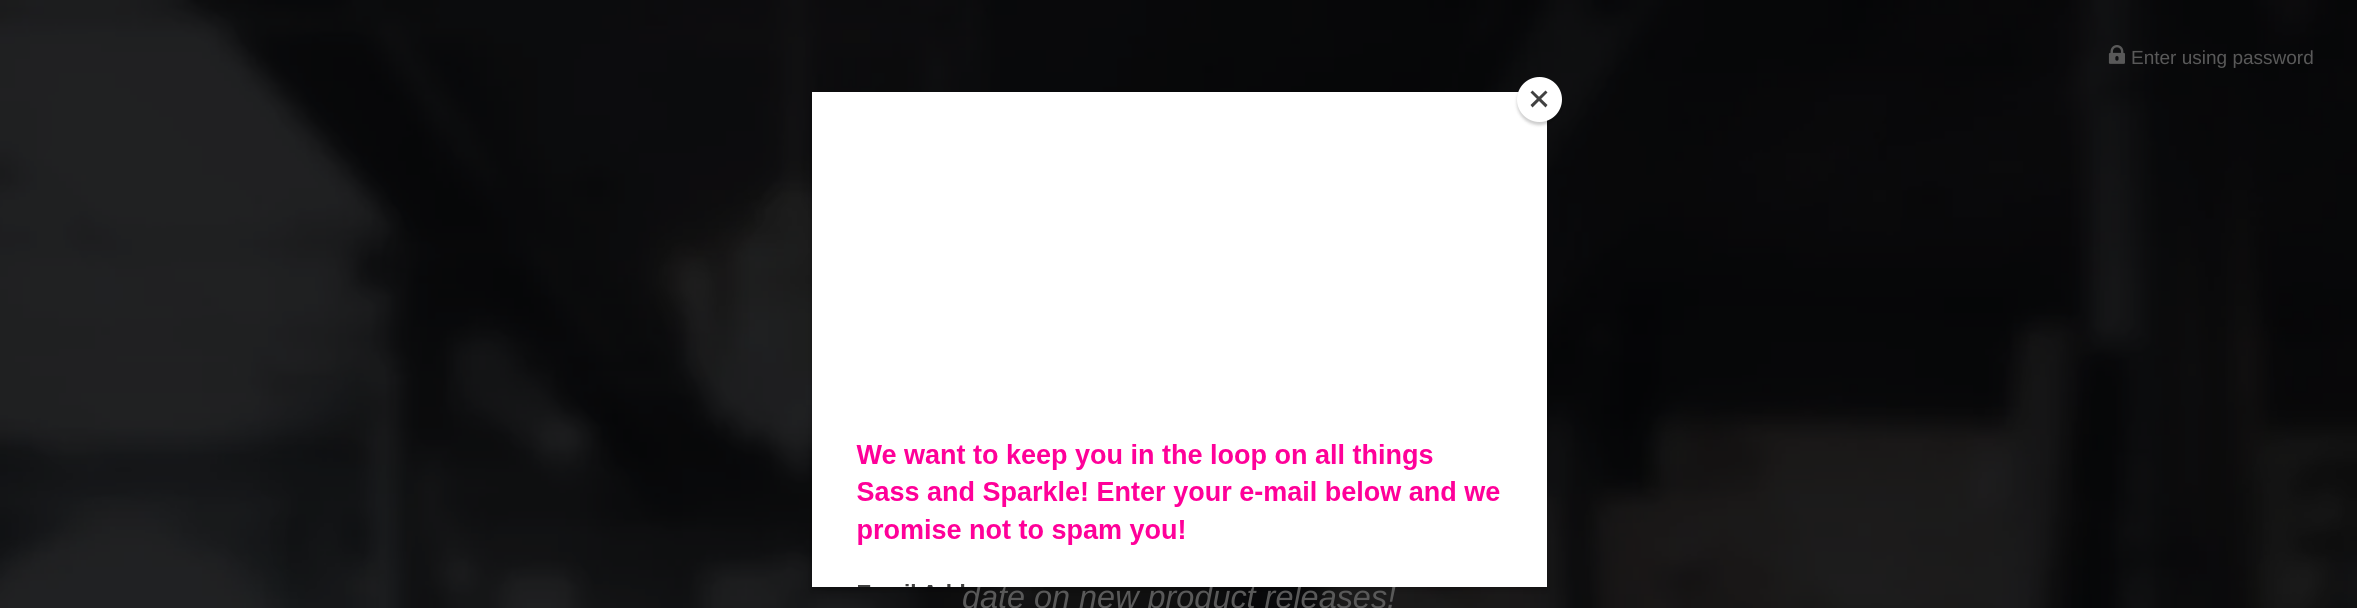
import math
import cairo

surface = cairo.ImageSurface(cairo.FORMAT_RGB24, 2357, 608)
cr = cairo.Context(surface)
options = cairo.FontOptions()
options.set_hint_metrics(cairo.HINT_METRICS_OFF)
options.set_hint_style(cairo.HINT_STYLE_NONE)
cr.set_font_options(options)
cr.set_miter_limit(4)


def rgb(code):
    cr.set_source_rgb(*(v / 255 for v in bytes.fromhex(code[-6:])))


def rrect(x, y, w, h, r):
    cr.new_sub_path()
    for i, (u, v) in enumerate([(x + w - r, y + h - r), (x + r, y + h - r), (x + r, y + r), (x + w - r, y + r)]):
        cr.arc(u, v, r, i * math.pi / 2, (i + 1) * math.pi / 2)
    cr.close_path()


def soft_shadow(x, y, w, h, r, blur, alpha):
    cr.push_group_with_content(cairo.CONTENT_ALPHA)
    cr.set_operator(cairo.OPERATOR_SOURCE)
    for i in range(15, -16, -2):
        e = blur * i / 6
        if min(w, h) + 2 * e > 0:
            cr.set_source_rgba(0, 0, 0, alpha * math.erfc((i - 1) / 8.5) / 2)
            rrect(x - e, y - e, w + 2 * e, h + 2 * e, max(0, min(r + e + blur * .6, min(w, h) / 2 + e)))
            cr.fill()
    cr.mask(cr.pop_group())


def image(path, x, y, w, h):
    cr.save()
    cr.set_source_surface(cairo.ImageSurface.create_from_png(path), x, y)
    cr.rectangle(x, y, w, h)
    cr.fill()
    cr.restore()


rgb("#ffffff")
cr.paint()
image("img/1.png", 0, 0, 2357, 608)
image("img/2.png", 2108, 45, 17, 19)
rgb("#000000")
soft_shadow(812, 95, 735, 495, 0, 3, 0.2)
cr.select_font_face("Liberation Sans")
cr.set_font_size(19)
rgb("#595959")
cr.move_to(2131, 64)
cr.show_text("Enter using password")
cr.select_font_face("Liberation Sans", cairo.FONT_SLANT_ITALIC)
cr.set_font_size(32.4)
cr.move_to(962, 608)
cr.show_text("date on new product releases!")
image("img/3.png", 812, 92, 735, 495)
rgb("#000000")
soft_shadow(1517, 80, 45, 45, 22.5, 1.5, 0.2)
rgb("#ffffff")
cr.arc(1539.5, 99.5, 22.5, 0, 2 * math.pi)
cr.fill()
rgb("#414141")
cr.new_path()
cr.move_to(1545.5, 90.5)
cr.line_to(1547.5, 92.5)
cr.line_to(1532.5, 107.5)
cr.line_to(1530.5, 105)
cr.close_path()
cr.fill()
cr.new_path()
cr.move_to(1530.5, 92.5)
cr.line_to(1532.5, 90.5)
cr.line_to(1547.5, 105)
cr.line_to(1545.5, 107.5)
cr.close_path()
cr.fill()
surface.write_to_png("page.png")
